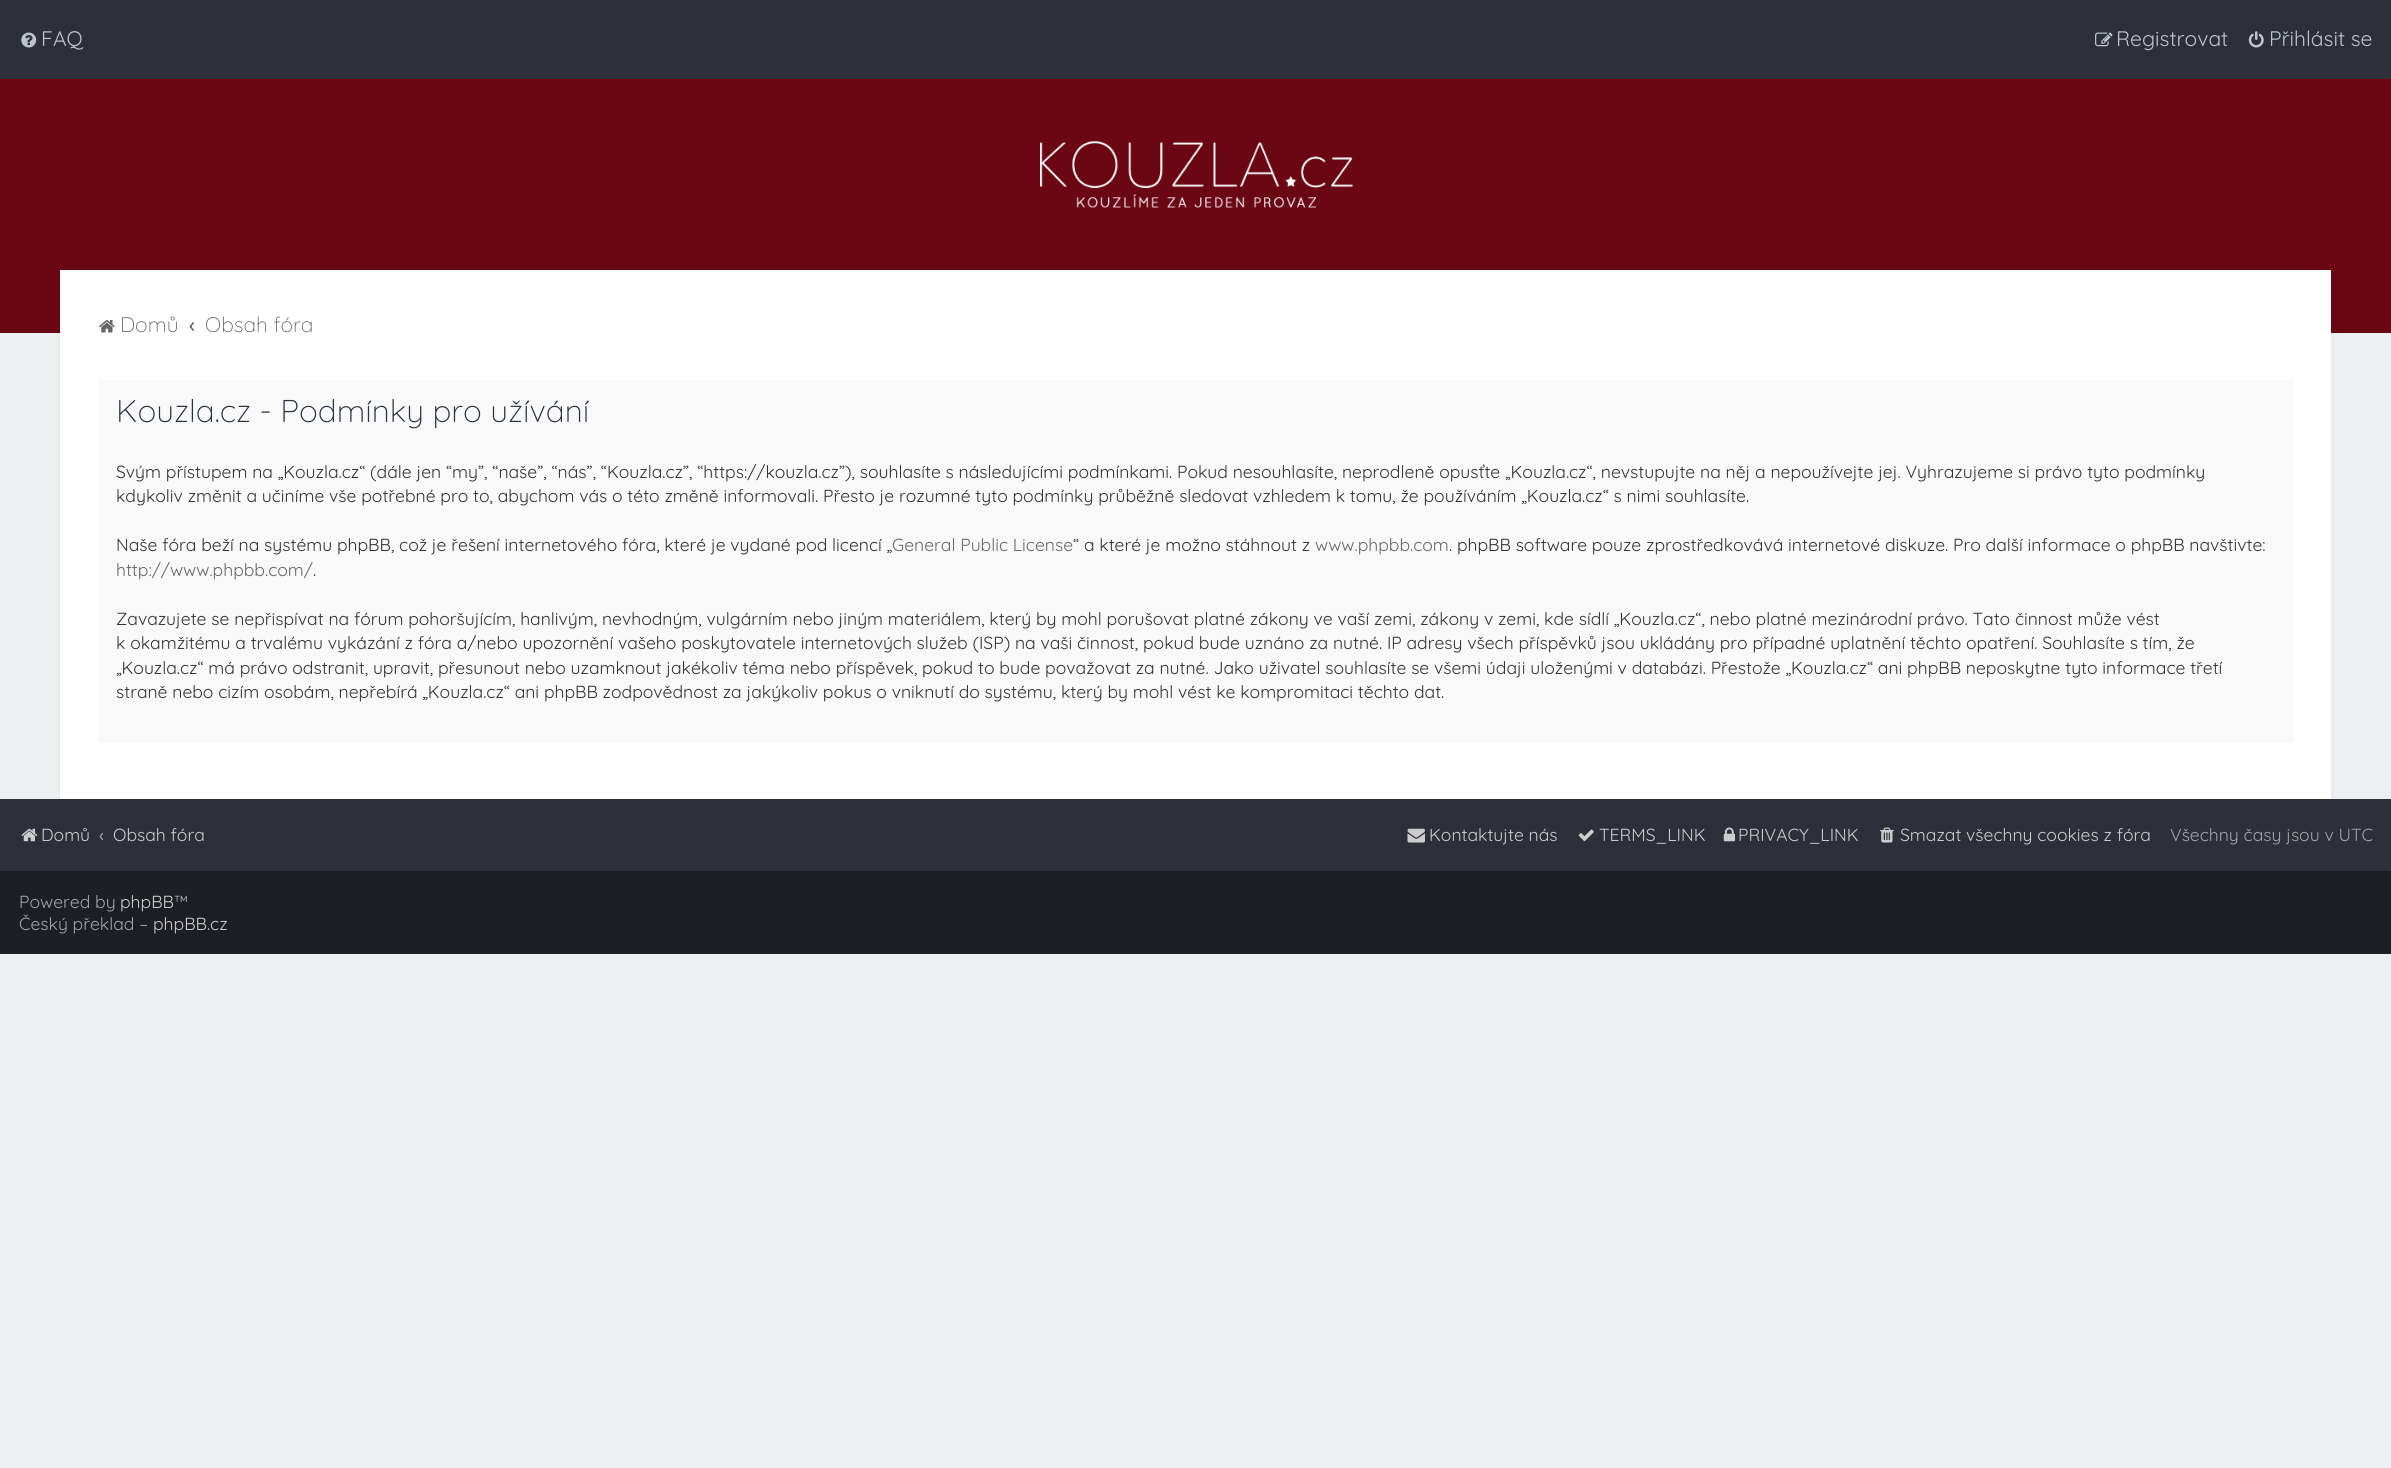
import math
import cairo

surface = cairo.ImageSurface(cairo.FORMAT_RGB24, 2391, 1468)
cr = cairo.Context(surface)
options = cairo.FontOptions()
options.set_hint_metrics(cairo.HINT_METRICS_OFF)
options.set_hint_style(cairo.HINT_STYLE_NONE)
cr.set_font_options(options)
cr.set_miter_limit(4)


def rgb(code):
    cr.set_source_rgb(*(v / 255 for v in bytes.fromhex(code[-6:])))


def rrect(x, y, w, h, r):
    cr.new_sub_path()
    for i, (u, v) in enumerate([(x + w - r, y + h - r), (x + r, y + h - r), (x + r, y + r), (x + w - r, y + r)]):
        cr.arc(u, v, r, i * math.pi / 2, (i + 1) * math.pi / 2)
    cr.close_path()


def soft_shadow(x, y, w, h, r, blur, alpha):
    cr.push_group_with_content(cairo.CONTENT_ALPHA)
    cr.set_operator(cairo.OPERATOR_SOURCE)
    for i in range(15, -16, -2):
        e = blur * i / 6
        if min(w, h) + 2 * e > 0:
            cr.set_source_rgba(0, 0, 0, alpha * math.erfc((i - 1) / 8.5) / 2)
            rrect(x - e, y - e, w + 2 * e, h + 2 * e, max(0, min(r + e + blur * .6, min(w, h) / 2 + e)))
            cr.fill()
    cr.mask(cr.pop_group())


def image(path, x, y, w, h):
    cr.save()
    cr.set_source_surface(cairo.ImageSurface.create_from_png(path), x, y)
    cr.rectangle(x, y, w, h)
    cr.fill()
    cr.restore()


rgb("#ecf0f1")
cr.paint()
rgb("#2d3039")
cr.rectangle(0, 0, 2391, 79)
cr.fill()
image("img/1.png", 21, 32, 16, 16)
image("img/2.png", 2095, 32, 18, 15)
image("img/3.png", 2248, 31, 16, 17)
rgb("#6b0713")
cr.rectangle(0, 79, 2391, 254)
cr.fill()
image("img/4.png", 1040, 141, 313, 67)
rgb("#2d3039")
cr.rectangle(0, 799, 2391, 72)
cr.fill()
rgb("#000000")
soft_shadow(60, 270, 2271, 529, 0, 3, 0.05)
rgb("#ffffff")
cr.rectangle(60, 270, 2271, 529)
cr.fill()
image("img/5.png", 99, 320, 16, 13)
rgb("#f9f9f9")
cr.rectangle(98, 380, 2196, 363)
cr.fill()
image("img/6.png", 21, 828, 17, 14)
image("img/7.png", 1407, 828, 18, 15)
image("img/8.png", 1578, 829, 16, 13)
image("img/9.png", 1723, 827, 12, 15)
image("img/10.png", 1880, 827, 14, 16)
rgb("#1d1f25")
cr.rectangle(0, 871, 2391, 83)
cr.fill()
cr.select_font_face("Quicksand")
cr.set_font_size(21)
rgb("#bec4c9")
for x, y, s in [
    (41, 46, "FAQ"),
    (2116, 46, "Registrovat"),
    (2269, 46, "Přihlásit se"),
]:
    cr.move_to(x, y)
    cr.show_text(s)
cr.select_font_face("Quicksand Light")
rgb("#676767")
cr.move_to(120, 332)
cr.show_text("Domů")
cr.select_font_face("Quicksand Medium")
rgb("#4c5d77")
cr.move_to(189, 332)
cr.show_text("‹")
cr.select_font_face("Quicksand Light")
rgb("#676767")
cr.move_to(205, 332)
cr.show_text("Obsah fóra")
cr.save()
cr.rectangle(116, 399, 2159, 325)
cr.clip()
cr.set_font_size(31.5)
rgb("#28313f")
cr.move_to(116, 422)
cr.show_text("Kouzla.cz - Podmínky pro užívání")
cr.restore()
cr.select_font_face("Quicksand")
cr.set_font_size(17.5)
rgb("#333333")
for x, y, s in [
    (116, 478, "Svým přístupem na „Kouzla.cz“ (dále jen “my”, “naše”, “nás”, “Kouzla.cz”, “https://kouzla.cz”), souhlasíte s následujícími podmínkami. Pokud nesouhlasíte, neprodleně opusťte „Kouzla.cz“, nevstupujte na něj a nepoužívejte jej. Vyhrazujeme si právo tyto podmínky"),
    (116, 502, "kdykoliv změnit a učiníme vše potřebné pro to, abychom vás o této změně informovali. Přesto je rozumné tyto podmínky průběžně sledovat vzhledem k tomu, že používáním „Kouzla.cz“ s nimi souhlasíte."),
    (116, 551, "Naše fóra beží na systému phpBB, což je řešení internetového fóra, které je vydané pod licencí „"),
]:
    cr.move_to(x, y)
    cr.show_text(s)
rgb("#676767")
cr.move_to(892, 551)
cr.show_text("General Public License")
rgb("#333333")
cr.move_to(1073, 551)
cr.show_text("“ a které je možno stáhnout z")
rgb("#676767")
cr.move_to(1315, 551)
cr.show_text("www.phpbb.com")
rgb("#333333")
cr.move_to(1449, 551)
cr.show_text(". phpBB software pouze zprostředkovává internetové diskuze. Pro další informace o phpBB navštivte:")
rgb("#676767")
cr.move_to(116, 576)
cr.show_text("http://www.phpbb.com/")
rgb("#333333")
for x, y, s in [
    (313, 576, "."),
    (116, 625, "Zavazujete se nepřispívat na fórum pohoršujícím, hanlivým, nevhodným, vulgárním nebo jiným materiálem, který by mohl porušovat platné zákony ve vaší zemi, zákony v zemi, kde sídlí „Kouzla.cz“, nebo platné mezinárodní právo. Tato činnost může vést"),
    (116, 649, "k okamžitému a trvalému vykázání z fóra a/nebo upozornění vašeho poskytovatele internetových služeb (ISP) na vaši činnost, pokud bude uznáno za nutné. IP adresy všech příspěvků jsou ukládány pro případné uplatnění těchto opatření. Souhlasíte s tím, že"),
    (116, 674, "„Kouzla.cz“ má právo odstranit, upravit, přesunout nebo uzamknout jakékoliv téma nebo příspěvek, pokud to bude považovat za nutné. Jako uživatel souhlasíte se všemi údaji uloženými v databázi. Přestože „Kouzla.cz“ ani phpBB neposkytne tyto informace třetí"),
    (116, 698, "straně nebo cizím osobám, nepřebírá „Kouzla.cz“ ani phpBB zodpovědnost za jakýkoliv pokus o vniknutí do systému, který by mohl vést ke kompromitaci těchto dat."),
]:
    cr.move_to(x, y)
    cr.show_text(s)
rgb("#cccccc")
cr.move_to(41, 841)
cr.show_text("Domů")
cr.select_font_face("Quicksand Medium")
rgb("#a4a4a7")
cr.move_to(99, 841)
cr.show_text("‹")
cr.select_font_face("Quicksand")
rgb("#cccccc")
for x, y, s in [
    (113, 841, "Obsah fóra"),
    (1429, 841, "Kontaktujte nás"),
    (1599, 841, "TERMS_LINK"),
    (1738, 841, "PRIVACY_LINK"),
    (1900, 841, "Smazat všechny cookies z fóra"),
]:
    cr.move_to(x, y)
    cr.show_text(s)
rgb("#a4a4a7")
cr.move_to(2170, 841)
cr.show_text("Všechny časy jsou v UTC")
cr.move_to(19, 908)
cr.show_text("Powered by")
rgb("#cccccc")
cr.move_to(120, 908)
cr.show_text("phpBB")
rgb("#a4a4a7")
cr.move_to(174, 908)
cr.show_text("™")
cr.move_to(19, 930)
cr.show_text("Český překlad –")
rgb("#cccccc")
cr.move_to(153, 930)
cr.show_text("phpBB.cz")
surface.write_to_png("page.png")
